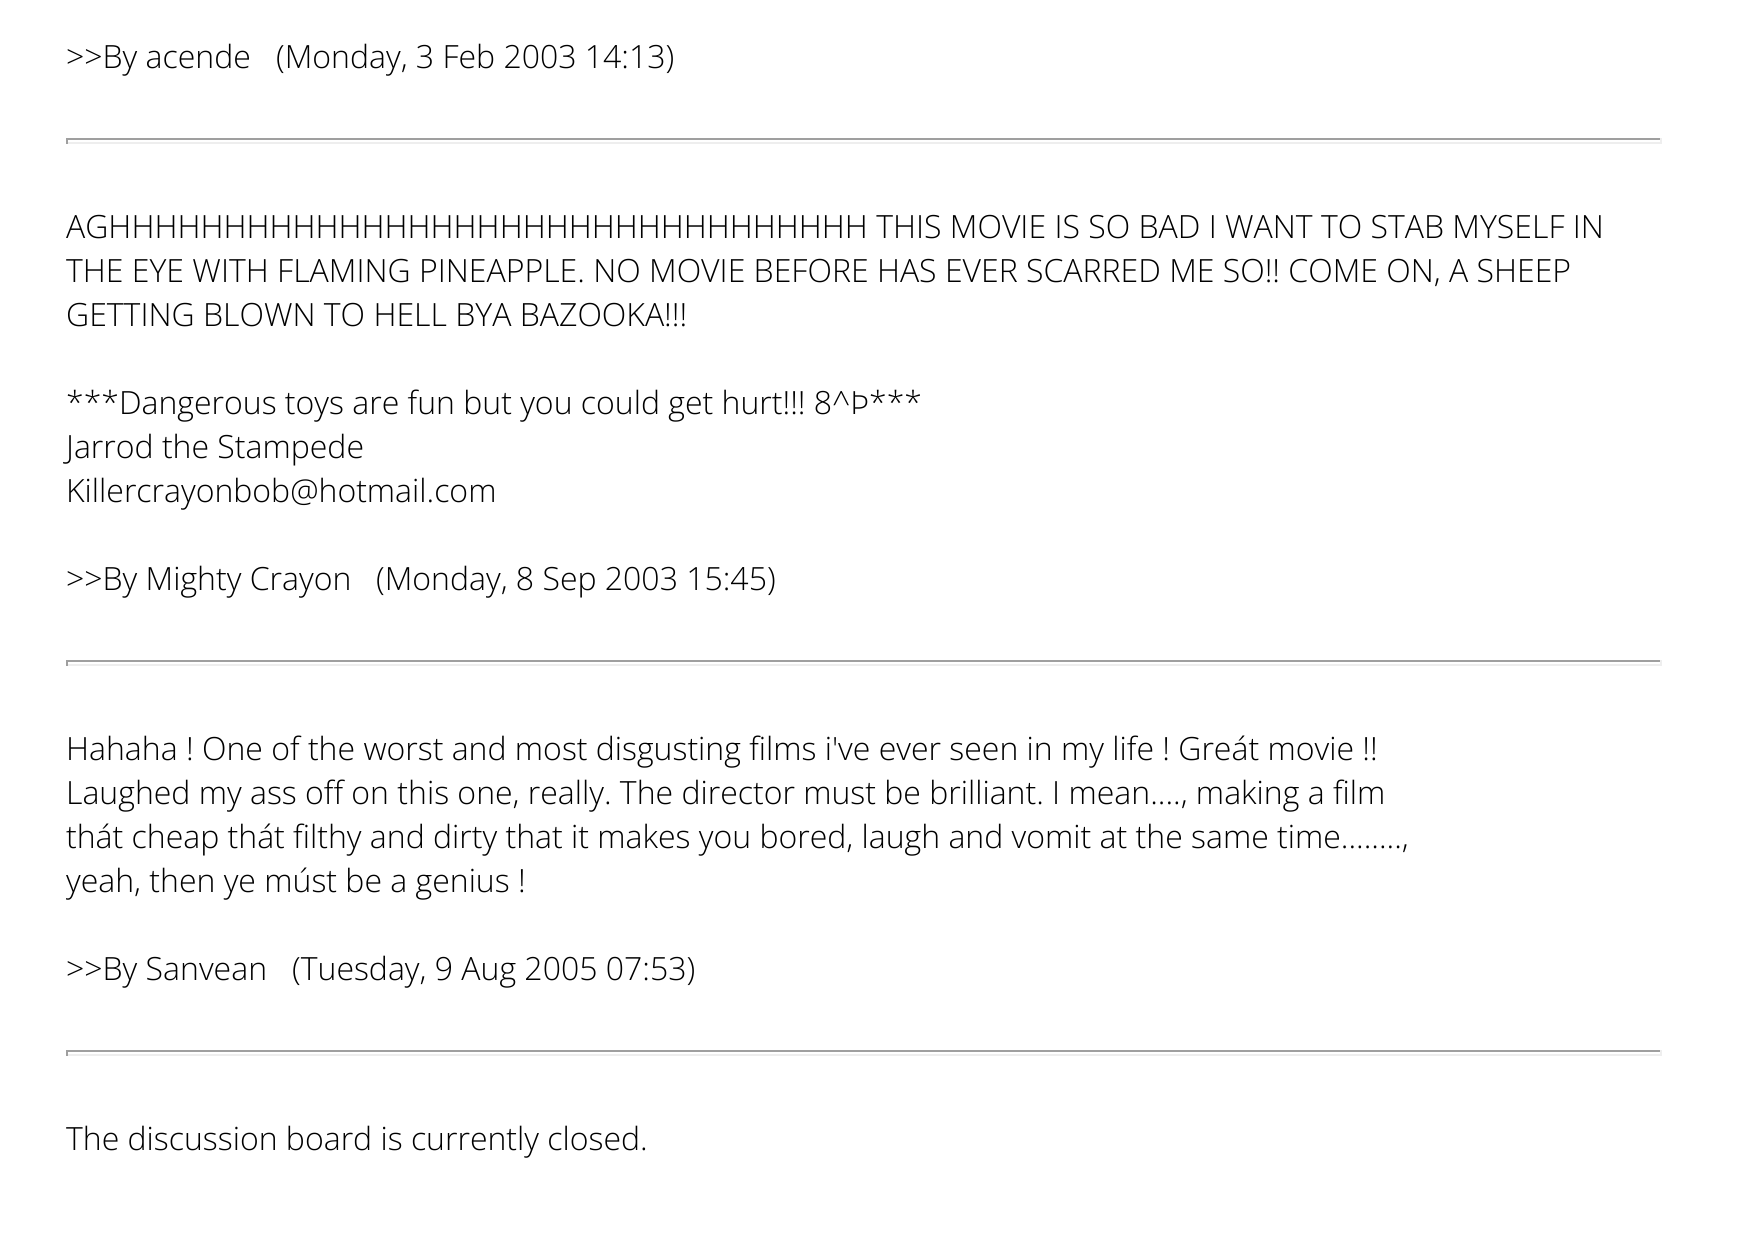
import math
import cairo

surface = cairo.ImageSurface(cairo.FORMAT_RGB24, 1758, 1242)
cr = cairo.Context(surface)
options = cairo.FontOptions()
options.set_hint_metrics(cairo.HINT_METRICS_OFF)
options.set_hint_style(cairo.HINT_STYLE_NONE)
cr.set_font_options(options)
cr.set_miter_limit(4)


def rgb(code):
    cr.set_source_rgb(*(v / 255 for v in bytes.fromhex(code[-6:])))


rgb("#ffffff")
cr.paint()
for x, y, w, h, color in [
    (66, 138, 1596, 2, "#9f9f9f"),
    (1660, 138, 2, 6, "#eeeeee"),
    (66, 142, 1596, 2, "#eeeeee"),
    (66, 138, 2, 6, "#9f9f9f"),
    (66, 660, 1596, 2, "#9f9f9f"),
    (1660, 660, 2, 6, "#eeeeee"),
    (66, 664, 1596, 2, "#eeeeee"),
    (66, 660, 2, 6, "#9f9f9f"),
    (66, 1050, 1596, 2, "#9f9f9f"),
    (1660, 1050, 2, 6, "#eeeeee"),
    (66, 1054, 1596, 2, "#eeeeee"),
    (66, 1050, 2, 6, "#9f9f9f"),
]:
    rgb(color)
    cr.rectangle(x, y, w, h)
    cr.fill()
cr.select_font_face("Open Sans Light")
cr.set_font_size(32)
rgb("#000000")
for x, y, s in [
    (66, 68, ">>By acende"),
    (276, 68, "(Monday, 3 Feb 2003 14:13)"),
    (66, 238, "AGHHHHHHHHHHHHHHHHHHHHHHHHHHHHHHHHH THIS MOVIE IS SO BAD I WANT TO STAB MYSELF IN"),
    (66, 282, "THE EYE WITH FLAMING PINEAPPLE. NO MOVIE BEFORE HAS EVER SCARRED ME SO!! COME ON, A SHEEP"),
    (66, 326, "GETTING BLOWN TO HELL BYA BAZOOKA!!!"),
    (66, 414, "***Dangerous toys are fun but you could get hurt!!! 8^Þ***"),
    (66, 458, "Jarrod the Stampede"),
    (66, 502, "Killercrayonbob@hotmail.com"),
    (66, 590, ">>By Mighty Crayon"),
    (376, 590, "(Monday, 8 Sep 2003 15:45)"),
    (66, 760, "Hahaha ! One of the worst and most disgusting films i've ever seen in my life ! Greát movie !!"),
    (66, 804, "Laughed my ass off on this one, really. The director must be brilliant. I mean...., making a film"),
    (66, 848, "thát cheap thát filthy and dirty that it makes you bored, laugh and vomit at the same time........,"),
    (66, 892, "yeah, then ye múst be a genius !"),
    (66, 980, ">>By Sanvean"),
    (292, 980, "(Tuesday, 9 Aug 2005 07:53)"),
    (66, 1150, "The discussion board is currently closed."),
]:
    cr.move_to(x, y)
    cr.show_text(s)
surface.write_to_png("page.png")
